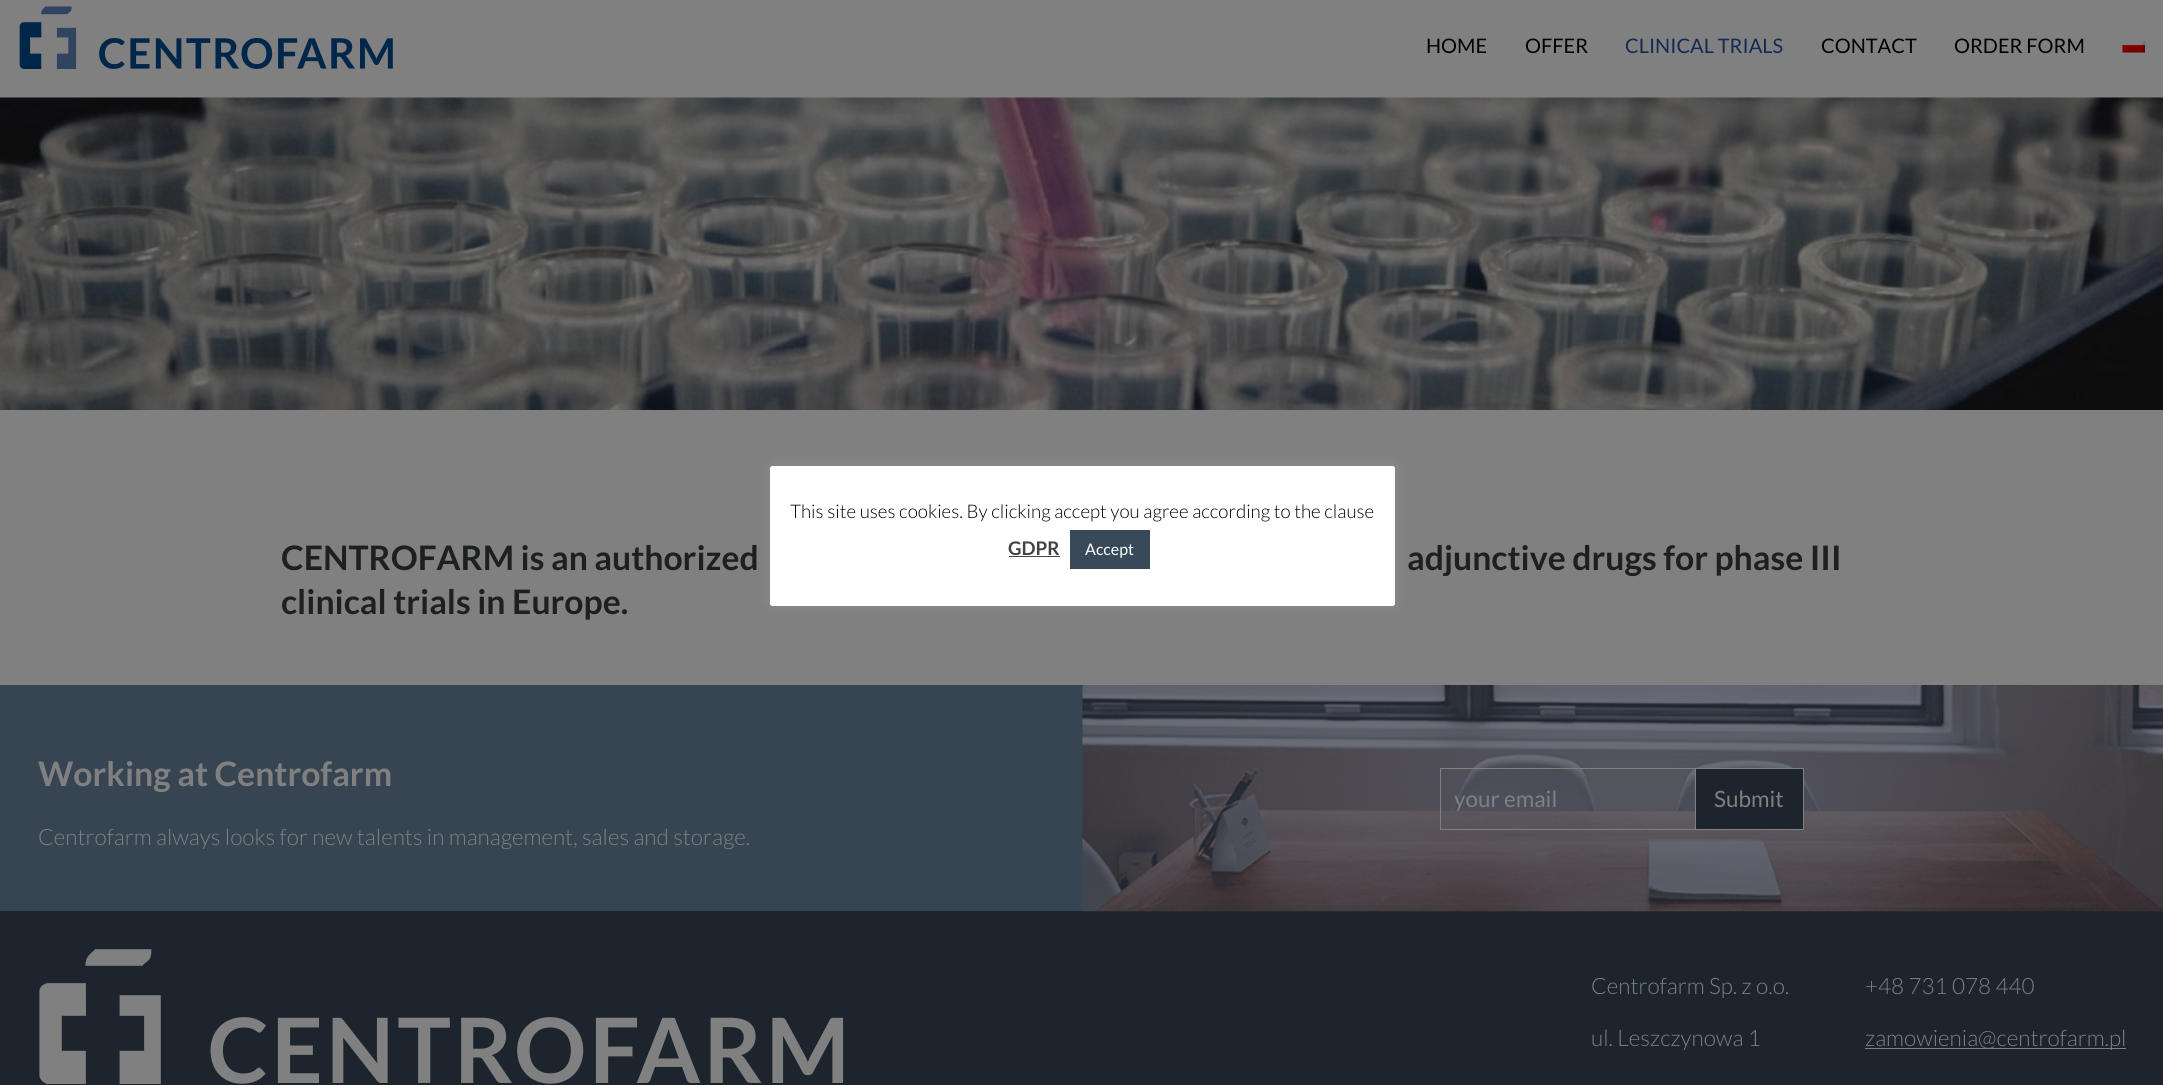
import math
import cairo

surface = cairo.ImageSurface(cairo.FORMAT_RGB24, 2163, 1085)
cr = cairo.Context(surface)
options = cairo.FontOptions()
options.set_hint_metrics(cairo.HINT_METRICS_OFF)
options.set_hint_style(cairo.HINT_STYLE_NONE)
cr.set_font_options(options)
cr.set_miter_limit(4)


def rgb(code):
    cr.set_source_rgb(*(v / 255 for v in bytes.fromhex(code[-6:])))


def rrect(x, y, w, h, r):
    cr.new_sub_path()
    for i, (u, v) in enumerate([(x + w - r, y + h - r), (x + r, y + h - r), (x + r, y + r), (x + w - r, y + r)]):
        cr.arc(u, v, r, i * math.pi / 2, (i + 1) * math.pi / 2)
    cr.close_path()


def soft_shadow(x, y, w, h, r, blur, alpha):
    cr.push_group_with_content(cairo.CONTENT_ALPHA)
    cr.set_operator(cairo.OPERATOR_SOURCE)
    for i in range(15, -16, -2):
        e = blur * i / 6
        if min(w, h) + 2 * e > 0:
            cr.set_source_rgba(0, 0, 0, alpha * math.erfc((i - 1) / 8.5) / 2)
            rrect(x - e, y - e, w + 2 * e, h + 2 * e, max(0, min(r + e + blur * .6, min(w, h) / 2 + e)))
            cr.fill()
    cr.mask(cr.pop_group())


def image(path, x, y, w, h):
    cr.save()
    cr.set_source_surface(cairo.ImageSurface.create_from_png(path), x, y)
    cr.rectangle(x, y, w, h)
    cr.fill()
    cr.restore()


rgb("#808080")
cr.paint()
image("img/1.png", 19, 6, 374, 63)
image("img/2.png", 2122, 40, 23, 13)
rgb("#acabab")
soft_shadow(770, 465, 625, 140, 2.5, 6, 0.3)
rgb("#ffffff")
rrect(770, 466, 625, 140, 2.5)
cr.fill()
rgb("#444444")
cr.rectangle(1009, 556, 51, 1)
cr.fill()
rgb("#384a5a")
cr.rectangle(1070, 530, 80, 39)
cr.fill()
image("img/3.png", 0, 97, 2163, 313)
rgb("#374552")
cr.rectangle(0, 685, 1083, 226)
cr.fill()
rgb("#1c252d")
cr.rectangle(0, 911, 2163, 174)
cr.fill()
image("img/4.png", 1082, 685, 1081, 227)
cr.rectangle(1440.5, 768.5, 255, 61)
rgb("#808080")
cr.set_line_width(1)
cr.stroke()
rgb("#1c252d")
cr.rectangle(1695.5, 768.5, 108, 61)
cr.fill_preserve()
rgb("#808080")
cr.stroke()
image("img/5.png", 39, 949, 805, 135)
cr.rectangle(1865, 1048, 261, 1)
cr.fill()
cr.select_font_face("Lato")
cr.set_font_size(20)
rgb("#000000")
cr.move_to(1426, 53)
cr.show_text("HOME")
cr.move_to(1525, 53)
cr.show_text("OFFER")
rgb("#152a53")
cr.move_to(1625, 53)
cr.show_text("CLINICAL TRIALS")
rgb("#000000")
cr.move_to(1821, 53)
cr.show_text("CONTACT")
cr.move_to(1954, 53)
cr.show_text("ORDER FORM")
cr.select_font_face("Lato Light")
cr.set_font_size(18.75)
cr.move_to(790, 518)
cr.show_text("This site uses cookies. By clicking accept you agree according to the clause")
cr.select_font_face("Lato", cairo.FONT_SLANT_NORMAL, cairo.FONT_WEIGHT_BOLD)
rgb("#444444")
cr.move_to(1008, 555)
cr.show_text("GDPR")
cr.select_font_face("Lato")
cr.set_font_size(16)
rgb("#ffffff")
cr.move_to(1085, 555)
cr.show_text("Accept")
cr.select_font_face("Lato", cairo.FONT_SLANT_NORMAL, cairo.FONT_WEIGHT_BOLD)
cr.set_font_size(33.75)
rgb("#1d1f20")
for x, y, s in [
    (281, 570, "CENTROFARM is an authorized"),
    (1407, 570, "adjunctive drugs for phase III"),
    (281, 614, "clinical trials in Europe."),
]:
    cr.move_to(x, y)
    cr.show_text(s)
rgb("#808080")
cr.move_to(38, 786)
cr.show_text("Working at Centrofarm")
cr.select_font_face("Lato Light")
cr.set_font_size(22.5)
cr.move_to(38, 845)
cr.show_text("Centrofarm always looks for new talents in management, sales and storage.")
cr.select_font_face("Lato")
cr.move_to(1454, 807)
cr.show_text("your email")
cr.move_to(1714, 807)
cr.show_text("Submit")
cr.select_font_face("Lato Light")
for x, y, s in [
    (1591, 994, "Centrofarm Sp. z o.o."),
    (1591, 1046, "ul. Leszczynowa 1"),
    (1865, 994, "+48 731 078 440"),
    (1865, 1046, "zamowienia@centrofarm.pl"),
]:
    cr.move_to(x, y)
    cr.show_text(s)
surface.write_to_png("page.png")
